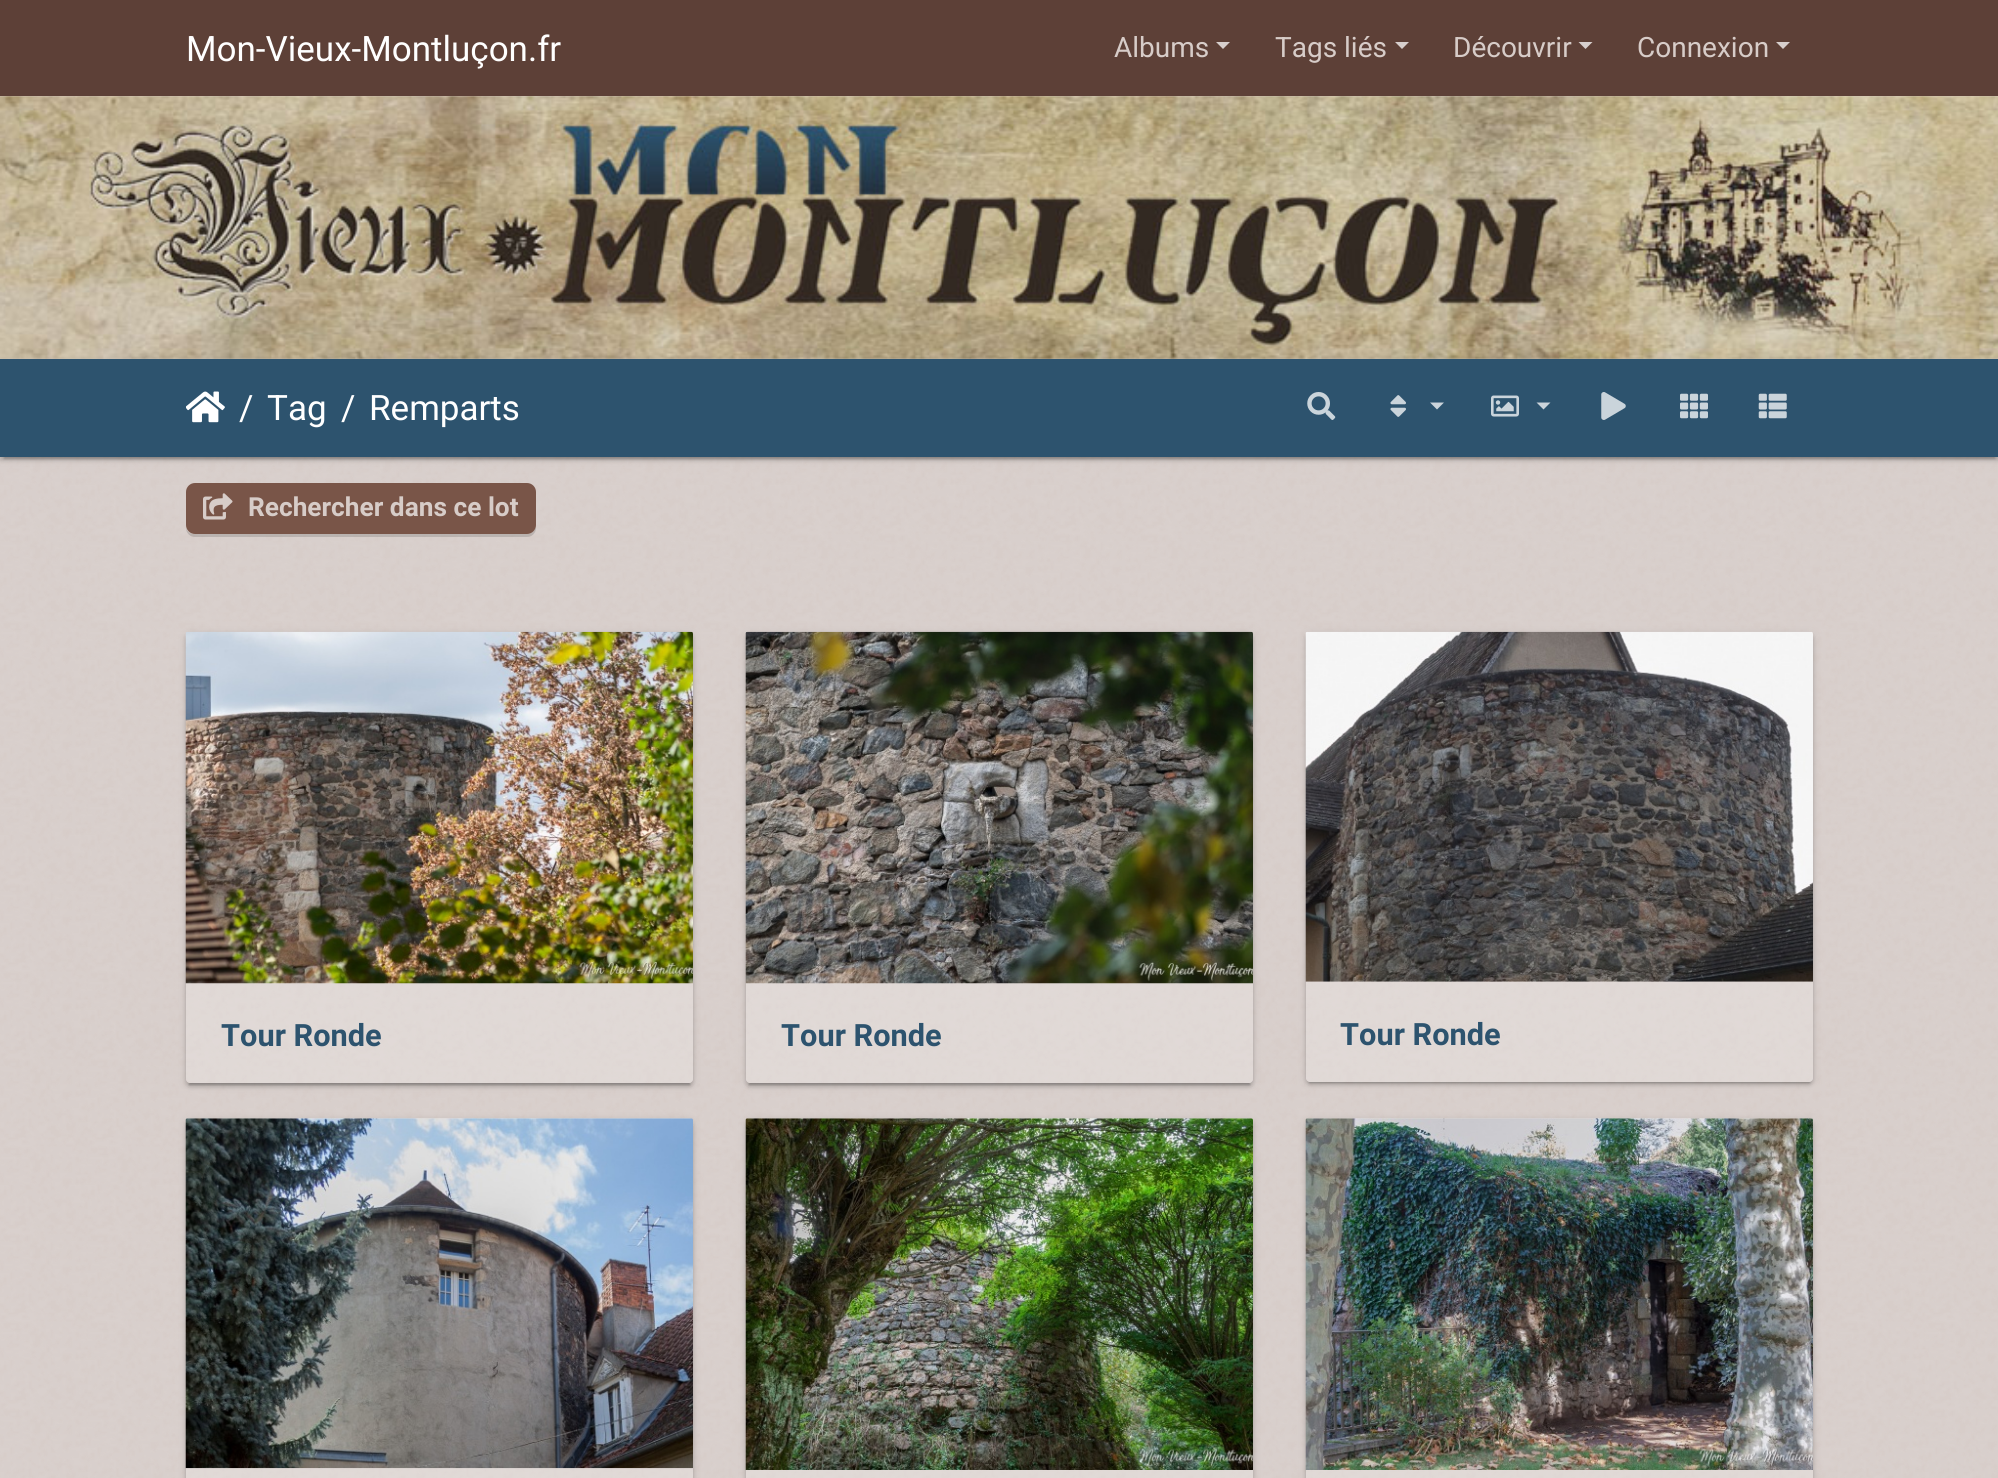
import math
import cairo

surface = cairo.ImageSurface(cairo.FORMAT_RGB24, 1998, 1478)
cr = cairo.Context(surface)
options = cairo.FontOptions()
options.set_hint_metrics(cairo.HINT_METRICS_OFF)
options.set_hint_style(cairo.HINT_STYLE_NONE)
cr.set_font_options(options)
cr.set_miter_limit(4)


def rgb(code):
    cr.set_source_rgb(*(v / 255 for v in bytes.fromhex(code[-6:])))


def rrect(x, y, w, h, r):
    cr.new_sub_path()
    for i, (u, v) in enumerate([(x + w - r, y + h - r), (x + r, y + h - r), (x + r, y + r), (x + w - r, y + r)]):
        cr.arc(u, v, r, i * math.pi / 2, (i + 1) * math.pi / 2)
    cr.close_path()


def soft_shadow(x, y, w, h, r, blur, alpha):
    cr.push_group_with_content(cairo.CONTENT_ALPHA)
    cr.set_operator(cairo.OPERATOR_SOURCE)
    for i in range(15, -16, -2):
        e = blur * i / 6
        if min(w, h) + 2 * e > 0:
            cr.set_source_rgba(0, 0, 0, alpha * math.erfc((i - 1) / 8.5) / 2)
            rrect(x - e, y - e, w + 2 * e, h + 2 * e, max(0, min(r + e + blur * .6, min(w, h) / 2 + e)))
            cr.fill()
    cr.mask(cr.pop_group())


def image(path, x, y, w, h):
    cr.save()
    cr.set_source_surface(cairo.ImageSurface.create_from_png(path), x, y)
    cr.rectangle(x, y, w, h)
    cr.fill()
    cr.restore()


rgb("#d7ccc8")
cr.paint()
image("img/1.png", 0, 96, 1998, 1382)
rgb("#5d4037")
cr.rectangle(0, 0, 1998, 96)
cr.fill()
rgb("#d7cfcd")
cr.new_path()
cr.move_to(1216, 42)
cr.line_to(1230, 42)
cr.line_to(1223, 49)
cr.close_path()
cr.fill()
cr.new_path()
cr.move_to(1395, 42)
cr.line_to(1409, 42)
cr.line_to(1402, 49)
cr.close_path()
cr.fill()
cr.new_path()
cr.move_to(1578.5, 42)
cr.line_to(1592.5, 42)
cr.line_to(1585.5, 49)
cr.close_path()
cr.fill()
cr.new_path()
cr.move_to(1776, 42)
cr.line_to(1790, 42)
cr.line_to(1783, 49)
cr.close_path()
cr.fill()
image("img/2.png", 0, 96, 1998, 263)
rgb("#000000")
soft_shadow(0, 361, 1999, 98, 0, 4.5, 0.12)
soft_shadow(4, 368, 1991, 91, 0, 1, 0.2)
soft_shadow(0, 362, 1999, 98, 0, 2, 0.14)
rgb("#2d536e")
cr.rectangle(0, 359, 1998, 98)
cr.fill()
image("img/3.png", 186, 391, 39, 32)
image("img/4.png", 1307, 392, 29, 28)
image("img/5.png", 1390, 395, 16, 22)
rgb("#cbd4db")
cr.new_path()
cr.move_to(1430, 402.5)
cr.line_to(1444, 402.5)
cr.line_to(1437, 409.5)
cr.close_path()
cr.fill()
image("img/6.png", 1491, 395, 28, 22)
cr.new_path()
cr.move_to(1536.5, 402.5)
cr.line_to(1550.5, 402.5)
cr.line_to(1543.5, 409.5)
cr.close_path()
cr.fill()
image("img/7.png", 1601, 392, 25, 28)
image("img/8.png", 1680, 393, 28, 26)
image("img/9.png", 1758, 393, 29, 26)
cr.set_source_rgba(0, 0, 0, 0.14)
cr.new_path()
cr.move_to(186, 528)
cr.curve_to(186, 533, 190, 537, 195, 537)
cr.line_to(527, 537)
cr.curve_to(532, 537, 536, 533, 536, 528)
cr.line_to(536, 496)
cr.line_to(536, 493)
cr.line_to(536, 525)
cr.curve_to(536, 530, 532, 534, 527, 534)
cr.line_to(194, 534)
cr.curve_to(190, 534, 187, 531, 186, 528)
cr.close_path()
cr.fill()
rgb("#795548")
rrect(186, 483, 350, 51, 9)
cr.fill()
image("img/10.png", 203, 493, 30, 27)
cr.save()
cr.set_fill_rule(cairo.FILL_RULE_EVEN_ODD)
cr.new_path()
cr.move_to(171, 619)
cr.line_to(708, 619)
cr.line_to(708, 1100)
cr.line_to(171, 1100)
cr.close_path()
cr.move_to(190, 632)
cr.line_to(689, 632)
cr.curve_to(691, 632, 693, 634, 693, 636)
cr.line_to(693, 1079)
cr.curve_to(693, 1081, 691, 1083, 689, 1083)
cr.line_to(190, 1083)
cr.curve_to(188, 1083, 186, 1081, 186, 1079)
cr.line_to(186, 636)
cr.curve_to(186, 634, 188, 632, 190, 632)
cr.close_path()
cr.clip()
rgb("#000000")
soft_shadow(186, 634, 507, 451, 4, 4.5, 0.12)
cr.restore()
cr.save()
cr.rectangle(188, 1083, 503, 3)
cr.clip()
rgb("#000000")
soft_shadow(189, 641, 501, 444, 0, 1, 0.2)
cr.restore()
cr.save()
cr.set_fill_rule(cairo.FILL_RULE_EVEN_ODD)
cr.new_path()
cr.move_to(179, 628)
cr.line_to(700, 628)
cr.line_to(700, 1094)
cr.line_to(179, 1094)
cr.close_path()
cr.move_to(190, 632)
cr.line_to(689, 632)
cr.curve_to(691, 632, 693, 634, 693, 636)
cr.line_to(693, 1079)
cr.curve_to(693, 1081, 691, 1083, 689, 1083)
cr.line_to(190, 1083)
cr.curve_to(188, 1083, 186, 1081, 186, 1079)
cr.line_to(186, 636)
cr.curve_to(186, 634, 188, 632, 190, 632)
cr.close_path()
cr.clip()
rgb("#000000")
soft_shadow(186, 635, 507, 452, 4, 2, 0.14)
cr.restore()
cr.set_source_rgba(1, 1, 1, 0.2)
rrect(186, 632, 507, 451, 4)
cr.fill()
image("img/11.png", 185, 631, 508, 353)
cr.save()
cr.set_fill_rule(cairo.FILL_RULE_EVEN_ODD)
cr.new_path()
cr.move_to(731, 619)
cr.line_to(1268, 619)
cr.line_to(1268, 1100)
cr.line_to(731, 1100)
cr.close_path()
cr.move_to(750, 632)
cr.line_to(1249, 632)
cr.curve_to(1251, 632, 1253, 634, 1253, 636)
cr.line_to(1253, 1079)
cr.curve_to(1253, 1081, 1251, 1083, 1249, 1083)
cr.line_to(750, 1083)
cr.curve_to(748, 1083, 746, 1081, 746, 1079)
cr.line_to(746, 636)
cr.curve_to(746, 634, 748, 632, 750, 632)
cr.close_path()
cr.clip()
rgb("#000000")
soft_shadow(746, 634, 507, 451, 4, 4.5, 0.12)
cr.restore()
cr.save()
cr.rectangle(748, 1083, 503, 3)
cr.clip()
rgb("#000000")
soft_shadow(749, 641, 501, 444, 0, 1, 0.2)
cr.restore()
cr.save()
cr.set_fill_rule(cairo.FILL_RULE_EVEN_ODD)
cr.new_path()
cr.move_to(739, 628)
cr.line_to(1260, 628)
cr.line_to(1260, 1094)
cr.line_to(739, 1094)
cr.close_path()
cr.move_to(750, 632)
cr.line_to(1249, 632)
cr.curve_to(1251, 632, 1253, 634, 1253, 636)
cr.line_to(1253, 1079)
cr.curve_to(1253, 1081, 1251, 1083, 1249, 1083)
cr.line_to(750, 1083)
cr.curve_to(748, 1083, 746, 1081, 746, 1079)
cr.line_to(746, 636)
cr.curve_to(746, 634, 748, 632, 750, 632)
cr.close_path()
cr.clip()
rgb("#000000")
soft_shadow(746, 635, 507, 452, 4, 2, 0.14)
cr.restore()
rrect(746, 632, 507, 451, 4)
cr.fill()
image("img/12.png", 745, 631, 508, 353)
cr.save()
cr.set_fill_rule(cairo.FILL_RULE_EVEN_ODD)
cr.new_path()
cr.move_to(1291, 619)
cr.line_to(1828, 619)
cr.line_to(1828, 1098)
cr.line_to(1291, 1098)
cr.close_path()
cr.move_to(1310, 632)
cr.line_to(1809, 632)
cr.curve_to(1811, 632, 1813, 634, 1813, 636)
cr.line_to(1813, 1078)
cr.curve_to(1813, 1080, 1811, 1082, 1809, 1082)
cr.line_to(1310, 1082)
cr.curve_to(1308, 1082, 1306, 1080, 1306, 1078)
cr.line_to(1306, 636)
cr.curve_to(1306, 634, 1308, 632, 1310, 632)
cr.close_path()
cr.clip()
rgb("#000000")
soft_shadow(1306, 634, 507, 449, 4, 4.5, 0.12)
cr.restore()
cr.save()
cr.set_fill_rule(cairo.FILL_RULE_EVEN_ODD)
cr.new_path()
cr.move_to(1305, 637)
cr.line_to(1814, 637)
cr.line_to(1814, 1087)
cr.line_to(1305, 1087)
cr.close_path()
cr.move_to(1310, 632)
cr.line_to(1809, 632)
cr.curve_to(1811, 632, 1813, 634, 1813, 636)
cr.line_to(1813, 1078)
cr.curve_to(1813, 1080, 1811, 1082, 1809, 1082)
cr.line_to(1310, 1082)
cr.curve_to(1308, 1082, 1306, 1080, 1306, 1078)
cr.line_to(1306, 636)
cr.curve_to(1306, 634, 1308, 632, 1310, 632)
cr.close_path()
cr.clip()
rgb("#000000")
soft_shadow(1309, 641, 501, 442, 0, 1, 0.2)
cr.restore()
cr.save()
cr.set_fill_rule(cairo.FILL_RULE_EVEN_ODD)
cr.new_path()
cr.move_to(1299, 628)
cr.line_to(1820, 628)
cr.line_to(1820, 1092)
cr.line_to(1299, 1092)
cr.close_path()
cr.move_to(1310, 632)
cr.line_to(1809, 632)
cr.curve_to(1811, 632, 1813, 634, 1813, 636)
cr.line_to(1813, 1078)
cr.curve_to(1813, 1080, 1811, 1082, 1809, 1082)
cr.line_to(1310, 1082)
cr.curve_to(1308, 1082, 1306, 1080, 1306, 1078)
cr.line_to(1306, 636)
cr.curve_to(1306, 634, 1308, 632, 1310, 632)
cr.close_path()
cr.clip()
rgb("#000000")
soft_shadow(1306, 635, 507, 450, 4, 2, 0.14)
cr.restore()
rrect(1306, 632, 507, 450, 4)
cr.fill()
image("img/13.png", 1305, 631, 508, 351)
cr.save()
cr.set_fill_rule(cairo.FILL_RULE_EVEN_ODD)
cr.new_path()
cr.move_to(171, 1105)
cr.line_to(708, 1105)
cr.line_to(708, 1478)
cr.line_to(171, 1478)
cr.close_path()
cr.move_to(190, 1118)
cr.line_to(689, 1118)
cr.curve_to(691, 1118, 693, 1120, 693, 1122)
cr.line_to(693, 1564)
cr.curve_to(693, 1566, 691, 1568, 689, 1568)
cr.line_to(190, 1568)
cr.curve_to(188, 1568, 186, 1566, 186, 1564)
cr.line_to(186, 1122)
cr.curve_to(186, 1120, 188, 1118, 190, 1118)
cr.close_path()
cr.clip()
rgb("#000000")
soft_shadow(186, 1120, 507, 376, 4, 4.5, 0.12)
cr.restore()
cr.save()
cr.set_fill_rule(cairo.FILL_RULE_EVEN_ODD)
cr.new_path()
cr.move_to(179, 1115)
cr.line_to(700, 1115)
cr.line_to(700, 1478)
cr.line_to(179, 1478)
cr.close_path()
cr.move_to(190, 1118)
cr.line_to(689, 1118)
cr.curve_to(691, 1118, 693, 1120, 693, 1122)
cr.line_to(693, 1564)
cr.curve_to(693, 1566, 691, 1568, 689, 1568)
cr.line_to(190, 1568)
cr.curve_to(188, 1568, 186, 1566, 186, 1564)
cr.line_to(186, 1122)
cr.curve_to(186, 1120, 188, 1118, 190, 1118)
cr.close_path()
cr.clip()
rgb("#000000")
soft_shadow(186, 1122, 507, 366, 4, 2, 0.14)
cr.restore()
rrect(186, 1118, 507, 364, 4)
cr.fill()
image("img/14.png", 185, 1118, 508, 351)
cr.save()
cr.set_fill_rule(cairo.FILL_RULE_EVEN_ODD)
cr.new_path()
cr.move_to(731, 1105)
cr.line_to(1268, 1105)
cr.line_to(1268, 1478)
cr.line_to(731, 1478)
cr.close_path()
cr.move_to(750, 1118)
cr.line_to(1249, 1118)
cr.curve_to(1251, 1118, 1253, 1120, 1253, 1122)
cr.line_to(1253, 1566)
cr.curve_to(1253, 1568, 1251, 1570, 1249, 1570)
cr.line_to(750, 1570)
cr.curve_to(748, 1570, 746, 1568, 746, 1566)
cr.line_to(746, 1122)
cr.curve_to(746, 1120, 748, 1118, 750, 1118)
cr.close_path()
cr.clip()
rgb("#000000")
soft_shadow(746, 1120, 507, 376, 4, 4.5, 0.12)
cr.restore()
cr.save()
cr.set_fill_rule(cairo.FILL_RULE_EVEN_ODD)
cr.new_path()
cr.move_to(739, 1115)
cr.line_to(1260, 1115)
cr.line_to(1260, 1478)
cr.line_to(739, 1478)
cr.close_path()
cr.move_to(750, 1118)
cr.line_to(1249, 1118)
cr.curve_to(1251, 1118, 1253, 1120, 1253, 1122)
cr.line_to(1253, 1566)
cr.curve_to(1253, 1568, 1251, 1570, 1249, 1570)
cr.line_to(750, 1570)
cr.curve_to(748, 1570, 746, 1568, 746, 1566)
cr.line_to(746, 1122)
cr.curve_to(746, 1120, 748, 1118, 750, 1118)
cr.close_path()
cr.clip()
rgb("#000000")
soft_shadow(746, 1122, 507, 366, 4, 2, 0.14)
cr.restore()
rrect(746, 1118, 507, 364, 4)
cr.fill()
image("img/15.png", 745, 1118, 508, 352)
cr.save()
cr.set_fill_rule(cairo.FILL_RULE_EVEN_ODD)
cr.new_path()
cr.move_to(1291, 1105)
cr.line_to(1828, 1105)
cr.line_to(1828, 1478)
cr.line_to(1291, 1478)
cr.close_path()
cr.move_to(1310, 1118)
cr.line_to(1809, 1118)
cr.curve_to(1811, 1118, 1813, 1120, 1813, 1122)
cr.line_to(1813, 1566)
cr.curve_to(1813, 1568, 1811, 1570, 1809, 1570)
cr.line_to(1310, 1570)
cr.curve_to(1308, 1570, 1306, 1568, 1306, 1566)
cr.line_to(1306, 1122)
cr.curve_to(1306, 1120, 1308, 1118, 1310, 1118)
cr.close_path()
cr.clip()
rgb("#000000")
soft_shadow(1306, 1120, 507, 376, 4, 4.5, 0.12)
cr.restore()
cr.save()
cr.set_fill_rule(cairo.FILL_RULE_EVEN_ODD)
cr.new_path()
cr.move_to(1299, 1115)
cr.line_to(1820, 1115)
cr.line_to(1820, 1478)
cr.line_to(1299, 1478)
cr.close_path()
cr.move_to(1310, 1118)
cr.line_to(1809, 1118)
cr.curve_to(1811, 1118, 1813, 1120, 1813, 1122)
cr.line_to(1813, 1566)
cr.curve_to(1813, 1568, 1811, 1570, 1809, 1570)
cr.line_to(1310, 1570)
cr.curve_to(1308, 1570, 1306, 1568, 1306, 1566)
cr.line_to(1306, 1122)
cr.curve_to(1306, 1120, 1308, 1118, 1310, 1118)
cr.close_path()
cr.clip()
rgb("#000000")
soft_shadow(1306, 1122, 507, 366, 4, 2, 0.14)
cr.restore()
rrect(1306, 1118, 507, 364, 4)
cr.fill()
image("img/16.png", 1305, 1118, 508, 352)
cr.select_font_face("Roboto")
cr.set_font_size(35)
rgb("#ffffff")
cr.move_to(186, 61)
cr.show_text("Mon-Vieux-Montluçon.fr")
cr.set_font_size(28)
rgb("#d7ccc8")
for x, y, s in [
    (1114, 57, "Albums"),
    (1275, 57, "Tags liés"),
    (1453, 57, "Découvrir"),
    (1637, 57, "Connexion"),
]:
    cr.move_to(x, y)
    cr.show_text(s)
cr.set_font_size(35)
rgb("#ffffff")
for x, y, s in [
    (239, 420, "/"),
    (267, 420, "Tag"),
    (341, 420, "/"),
    (369, 420, "Remparts"),
]:
    cr.move_to(x, y)
    cr.show_text(s)
cr.select_font_face("Roboto", cairo.FONT_SLANT_NORMAL, cairo.FONT_WEIGHT_BOLD)
cr.set_font_size(26.25)
rgb("#d7ccc8")
cr.move_to(248, 516)
cr.show_text("Rechercher dans ce lot")
cr.set_font_size(30.75)
rgb("#2d536e")
for x, y, s in [
    (221, 1046, "Tour Ronde"),
    (781, 1046, "Tour Ronde"),
    (1340, 1045, "Tour Ronde"),
]:
    cr.move_to(x, y)
    cr.show_text(s)
surface.write_to_png("page.png")
